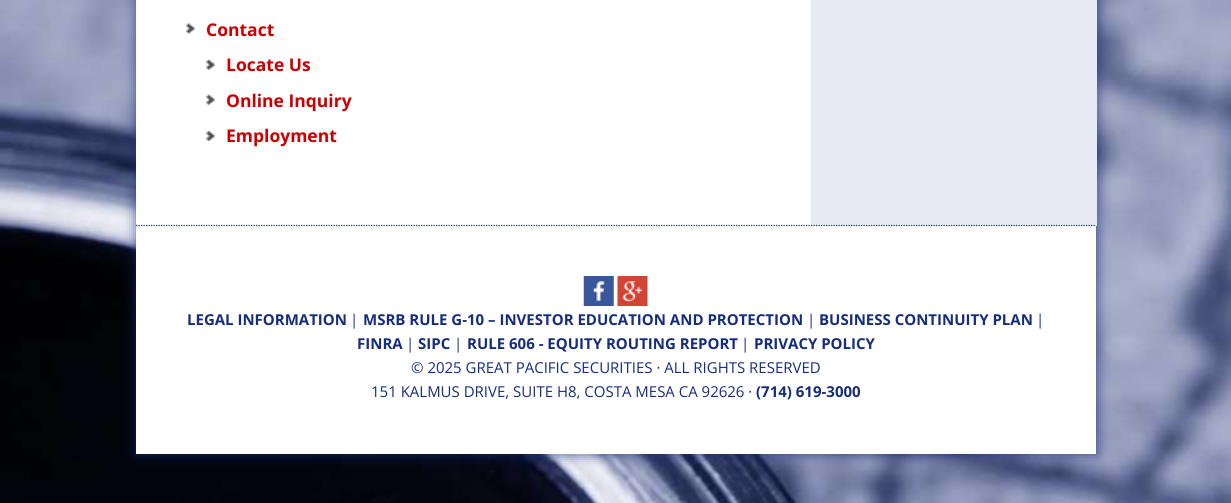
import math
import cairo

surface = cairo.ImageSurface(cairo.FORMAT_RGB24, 1231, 503)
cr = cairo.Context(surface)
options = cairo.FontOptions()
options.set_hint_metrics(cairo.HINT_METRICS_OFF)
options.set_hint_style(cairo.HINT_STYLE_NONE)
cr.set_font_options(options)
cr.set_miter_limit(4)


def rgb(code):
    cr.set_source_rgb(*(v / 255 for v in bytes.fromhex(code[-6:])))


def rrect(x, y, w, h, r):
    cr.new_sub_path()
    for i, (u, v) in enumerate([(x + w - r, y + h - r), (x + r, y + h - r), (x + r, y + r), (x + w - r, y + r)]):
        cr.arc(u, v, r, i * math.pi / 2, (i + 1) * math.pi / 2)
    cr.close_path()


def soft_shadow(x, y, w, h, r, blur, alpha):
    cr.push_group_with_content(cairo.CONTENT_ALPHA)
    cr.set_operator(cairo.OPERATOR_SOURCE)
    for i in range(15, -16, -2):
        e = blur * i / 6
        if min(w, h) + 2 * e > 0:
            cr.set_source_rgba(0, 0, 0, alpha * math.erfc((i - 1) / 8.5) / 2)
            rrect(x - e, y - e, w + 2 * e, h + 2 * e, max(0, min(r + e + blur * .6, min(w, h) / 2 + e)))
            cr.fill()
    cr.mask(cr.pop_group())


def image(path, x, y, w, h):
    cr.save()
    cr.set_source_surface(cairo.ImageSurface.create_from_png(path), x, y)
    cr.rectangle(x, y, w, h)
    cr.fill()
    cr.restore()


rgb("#ffffff")
cr.paint()
image("img/1.png", 0, 0, 1231, 503)
rgb("#162d7b")
soft_shadow(136, -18, 962, 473, 0, 6, 0.7)
for x, y, w, h, color in [
    (136, 0, 675, 226, "#ffffff"),
    (811, 0, 286, 226, "#e7eaf2"),
    (136, 226, 960, 228, "#ffffff"),
]:
    rgb(color)
    cr.rectangle(x, y, w, h)
    cr.fill()
cr.new_path()
cr.move_to(136, 225.5)
cr.line_to(1096, 225.5)
rgb("#162d7b")
cr.set_line_width(1.2)
cr.set_dash([1.25, 1.25])
cr.stroke()
image("img/2.png", 186, 23, 9, 11)
image("img/3.png", 206, 59, 9, 11)
image("img/3.png", 206, 94, 9, 11)
image("img/4.png", 206, 131, 9, 10)
image("img/5.png", 583, 276, 31, 30)
image("img/6.png", 617, 276, 31, 30)
cr.select_font_face("Open Sans", cairo.FONT_SLANT_NORMAL, cairo.FONT_WEIGHT_BOLD)
cr.set_font_size(17.5)
rgb("#cc0000")
for x, y, s in [
    (206, 36, "Contact"),
    (226, 71, "Locate Us"),
    (226, 107, "Online Inquiry"),
    (226, 142, "Employment"),
]:
    cr.move_to(x, y)
    cr.show_text(s)
cr.set_font_size(15)
rgb("#162d7b")
cr.move_to(187, 325)
cr.show_text("LEGAL INFORMATION")
cr.select_font_face("Open Sans")
cr.move_to(350, 325)
cr.show_text("|")
cr.select_font_face("Open Sans", cairo.FONT_SLANT_NORMAL, cairo.FONT_WEIGHT_BOLD)
cr.move_to(363, 325)
cr.show_text("MSRB RULE G-10 – INVESTOR EDUCATION AND PROTECTION")
cr.select_font_face("Open Sans")
cr.move_to(807, 325)
cr.show_text("|")
cr.select_font_face("Open Sans", cairo.FONT_SLANT_NORMAL, cairo.FONT_WEIGHT_BOLD)
cr.move_to(819, 325)
cr.show_text("BUSINESS CONTINUITY PLAN")
cr.select_font_face("Open Sans")
cr.move_to(1036, 325)
cr.show_text("|")
cr.select_font_face("Open Sans", cairo.FONT_SLANT_NORMAL, cairo.FONT_WEIGHT_BOLD)
cr.move_to(357, 349)
cr.show_text("FINRA")
cr.select_font_face("Open Sans")
cr.move_to(406, 349)
cr.show_text("|")
cr.select_font_face("Open Sans", cairo.FONT_SLANT_NORMAL, cairo.FONT_WEIGHT_BOLD)
cr.move_to(418, 349)
cr.show_text("SIPC")
cr.select_font_face("Open Sans")
cr.move_to(454, 349)
cr.show_text("|")
cr.select_font_face("Open Sans", cairo.FONT_SLANT_NORMAL, cairo.FONT_WEIGHT_BOLD)
cr.move_to(467, 349)
cr.show_text("RULE 606 - EQUITY ROUTING REPORT")
cr.select_font_face("Open Sans")
cr.move_to(741, 349)
cr.show_text("|")
cr.select_font_face("Open Sans", cairo.FONT_SLANT_NORMAL, cairo.FONT_WEIGHT_BOLD)
cr.move_to(754, 349)
cr.show_text("PRIVACY POLICY")
cr.select_font_face("Open Sans")
cr.move_to(411, 373)
cr.show_text("© 2025 GREAT PACIFIC SECURITIES · ALL RIGHTS RESERVED")
cr.move_to(371, 397)
cr.show_text("151 KALMUS DRIVE, SUITE H8, COSTA MESA CA 92626 ·")
cr.select_font_face("Open Sans", cairo.FONT_SLANT_NORMAL, cairo.FONT_WEIGHT_BOLD)
cr.move_to(756, 397)
cr.show_text("(714) 619-3000")
surface.write_to_png("page.png")
